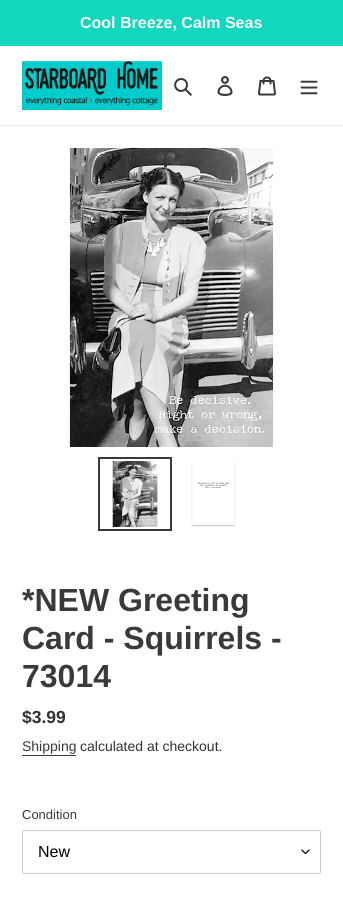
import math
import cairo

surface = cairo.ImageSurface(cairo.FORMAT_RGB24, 343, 897)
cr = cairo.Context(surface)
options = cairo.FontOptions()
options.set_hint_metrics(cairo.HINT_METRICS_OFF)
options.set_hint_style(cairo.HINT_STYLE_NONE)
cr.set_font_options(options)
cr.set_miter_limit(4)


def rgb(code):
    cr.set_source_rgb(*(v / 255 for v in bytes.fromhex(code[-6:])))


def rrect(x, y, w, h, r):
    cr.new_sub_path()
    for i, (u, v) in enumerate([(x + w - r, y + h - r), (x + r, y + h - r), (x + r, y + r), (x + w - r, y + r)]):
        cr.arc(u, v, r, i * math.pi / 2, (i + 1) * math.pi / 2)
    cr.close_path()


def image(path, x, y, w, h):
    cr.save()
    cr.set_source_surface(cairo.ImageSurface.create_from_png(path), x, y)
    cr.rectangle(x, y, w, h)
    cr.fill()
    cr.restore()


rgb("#ffffff")
cr.paint()
rgb("#10d7be")
cr.rectangle(0, 0, 343, 46)
cr.fill()
rgb("#ebebeb")
cr.rectangle(0, 125, 343, 1)
cr.fill()
image("img/1.png", 22, 61, 140, 49)
image("img/2.png", 174, 78, 18, 18)
image("img/3.png", 217, 76, 16, 20)
image("img/4.png", 258, 76, 18, 20)
image("img/5.png", 300, 80, 18, 15)
image("img/6.png", 69, 148, 205, 299)
cr.rectangle(99, 458, 72, 72)
rgb("#3a3a3a")
cr.stroke()
image("img/7.png", 112, 461, 46, 66)
image("img/8.png", 191, 462, 45, 65)
cr.rectangle(22, 755, 54, 1)
cr.fill()
image("img/9.png", 301, 849, 9, 6)
rrect(22.5, 830.5, 298, 43, 1.5)
rgb("#cccccc")
cr.set_line_width(1)
cr.stroke()
cr.select_font_face("Liberation Sans", cairo.FONT_SLANT_NORMAL, cairo.FONT_WEIGHT_BOLD)
cr.set_font_size(16)
rgb("#ffffff")
cr.move_to(80, 28)
cr.show_text("Cool Breeze, Calm Seas")
cr.set_font_size(32)
rgb("#3a3a3a")
for x, y, s in [
    (22, 611, "*NEW Greeting"),
    (22, 649, "Card - Squirrels -"),
    (22, 687, "73014"),
]:
    cr.move_to(x, y)
    cr.show_text(s)
cr.set_font_size(17.5)
rgb("#333232")
cr.move_to(22, 723)
cr.show_text("$3.99")
cr.select_font_face("Liberation Sans")
cr.set_font_size(14)
rgb("#3a3a3a")
cr.move_to(22, 751)
cr.show_text("Shipping")
rgb("#333232")
cr.move_to(80, 751)
cr.show_text("calculated at checkout.")
cr.set_font_size(13)
rgb("#3a3a3a")
cr.move_to(22, 819)
cr.show_text("Condition")
cr.set_font_size(16)
rgb("#000000")
cr.move_to(38, 857)
cr.show_text("New")
surface.write_to_png("page.png")
